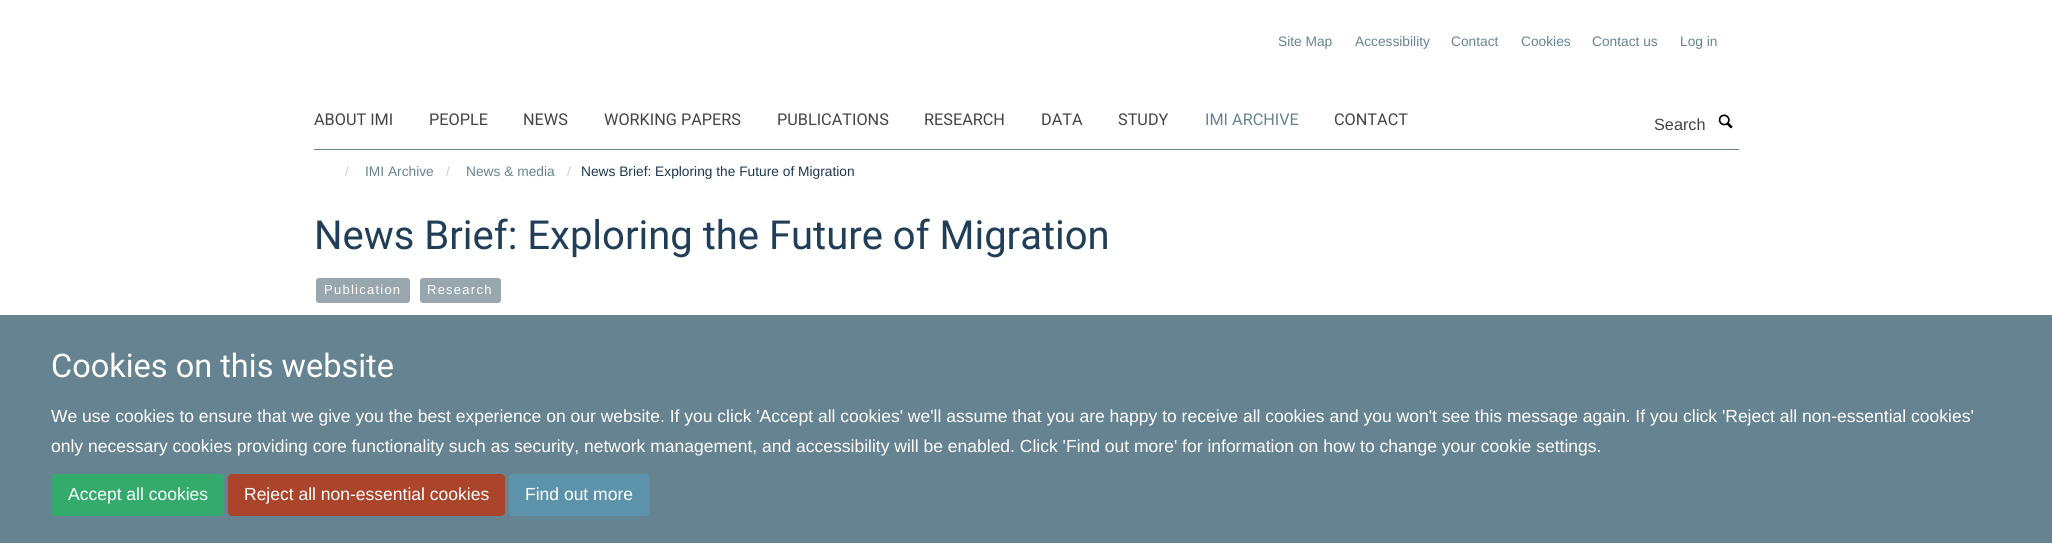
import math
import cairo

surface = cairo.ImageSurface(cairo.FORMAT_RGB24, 2052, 543)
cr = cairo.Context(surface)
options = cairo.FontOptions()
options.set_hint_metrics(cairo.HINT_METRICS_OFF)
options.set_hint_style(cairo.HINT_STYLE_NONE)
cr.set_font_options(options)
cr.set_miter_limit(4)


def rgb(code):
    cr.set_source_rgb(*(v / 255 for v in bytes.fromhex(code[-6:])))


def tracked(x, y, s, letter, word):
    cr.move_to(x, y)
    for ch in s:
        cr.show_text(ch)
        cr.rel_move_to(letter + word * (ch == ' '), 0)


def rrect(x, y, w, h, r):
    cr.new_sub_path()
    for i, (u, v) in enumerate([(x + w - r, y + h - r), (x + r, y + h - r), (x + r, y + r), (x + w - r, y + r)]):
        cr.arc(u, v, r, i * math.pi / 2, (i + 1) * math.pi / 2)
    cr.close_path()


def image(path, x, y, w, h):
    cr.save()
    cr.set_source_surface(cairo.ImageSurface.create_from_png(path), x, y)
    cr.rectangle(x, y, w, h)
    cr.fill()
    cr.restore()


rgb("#ffffff")
cr.paint()
rgb("#668391")
cr.rectangle(314, 149, 1425, 1)
cr.fill()
image("img/1.png", 1718, 114, 15, 15)
rgb("#98a7ae")
rrect(316, 278, 94, 25, 3)
cr.fill()
rrect(420, 278, 81, 25, 3)
cr.fill()
rgb("#668391")
cr.rectangle(0, 315, 2052, 228)
cr.fill()
rgb("#34aa6d")
rrect(51.5, 474.5, 172, 41, 3.5)
cr.fill_preserve()
cr.set_line_width(1)
cr.stroke()
rgb("#aa442b")
rrect(228.5, 474.5, 276, 41, 3.5)
cr.fill_preserve()
cr.stroke()
rgb("#5d93aa")
rrect(509.5, 474.5, 140, 41, 3.5)
cr.fill_preserve()
cr.stroke()
cr.select_font_face("Liberation Sans")
cr.set_font_size(13.75)
rgb("#668391")
for x, y, s in [
    (1278, 46, "Site Map"),
    (1355, 46, "Accessibility"),
    (1451, 46, "Contact"),
    (1521, 46, "Cookies"),
    (1592, 46, "Contact us"),
    (1680, 46, "Log in"),
]:
    cr.move_to(x, y)
    cr.show_text(s)
cr.select_font_face("Roboto")
cr.set_font_size(16.25)
rgb("#444444")
for x, y, s in [
    (314, 125, "ABOUT IMI"),
    (429, 125, "PEOPLE"),
    (523, 125, "NEWS"),
    (604, 125, "WORKING PAPERS"),
    (777, 125, "PUBLICATIONS"),
    (924, 125, "RESEARCH"),
    (1041, 125, "DATA"),
    (1118, 125, "STUDY"),
]:
    cr.move_to(x, y)
    cr.show_text(s)
rgb("#668391")
cr.move_to(1205, 125)
cr.show_text("IMI ARCHIVE")
rgb("#444444")
cr.move_to(1334, 125)
cr.show_text("CONTACT")
cr.select_font_face("Liberation Sans")
cr.move_to(1654, 130)
cr.show_text("Search")
cr.set_font_size(13.75)
rgb("#cccccc")
cr.move_to(345, 176)
cr.show_text("/")
rgb("#668391")
cr.move_to(365, 176)
cr.show_text("IMI Archive")
rgb("#cccccc")
cr.move_to(446, 176)
cr.show_text("/")
rgb("#668391")
cr.move_to(466, 176)
cr.show_text("News & media")
rgb("#cccccc")
cr.move_to(567, 176)
cr.show_text("/")
rgb("#1d3850")
cr.move_to(581, 176)
cr.show_text("News Brief: Exploring the Future of Migration")
cr.select_font_face("Roboto")
cr.set_font_size(40)
rgb("#203e58")
cr.move_to(314, 249)
cr.show_text("News Brief: Exploring the Future of Migration")
cr.select_font_face("Liberation Sans")
cr.set_font_size(13)
rgb("#ffffff")
tracked(324, 294, "Publication", 1.25, 0)
tracked(427, 294, "Research", 1.25, 0)
cr.select_font_face("Roboto")
cr.set_font_size(32.5)
cr.move_to(51, 377)
cr.show_text("Cookies on this website")
cr.select_font_face("Liberation Sans")
cr.set_font_size(17.5)
for x, y, s in [
    (51, 422, "We use cookies to ensure that we give you the best experience on our website. If you click 'Accept all cookies' we'll assume that you are happy to receive all cookies and you won't see this message again. If you click 'Reject all non-essential cookies'"),
    (51, 452, "only necessary cookies providing core functionality such as security, network management, and accessibility will be enabled. Click 'Find out more' for information on how to change your cookie settings."),
    (68, 500, "Accept all cookies"),
    (244, 500, "Reject all non-essential cookies"),
    (525, 500, "Find out more"),
]:
    cr.move_to(x, y)
    cr.show_text(s)
surface.write_to_png("page.png")
